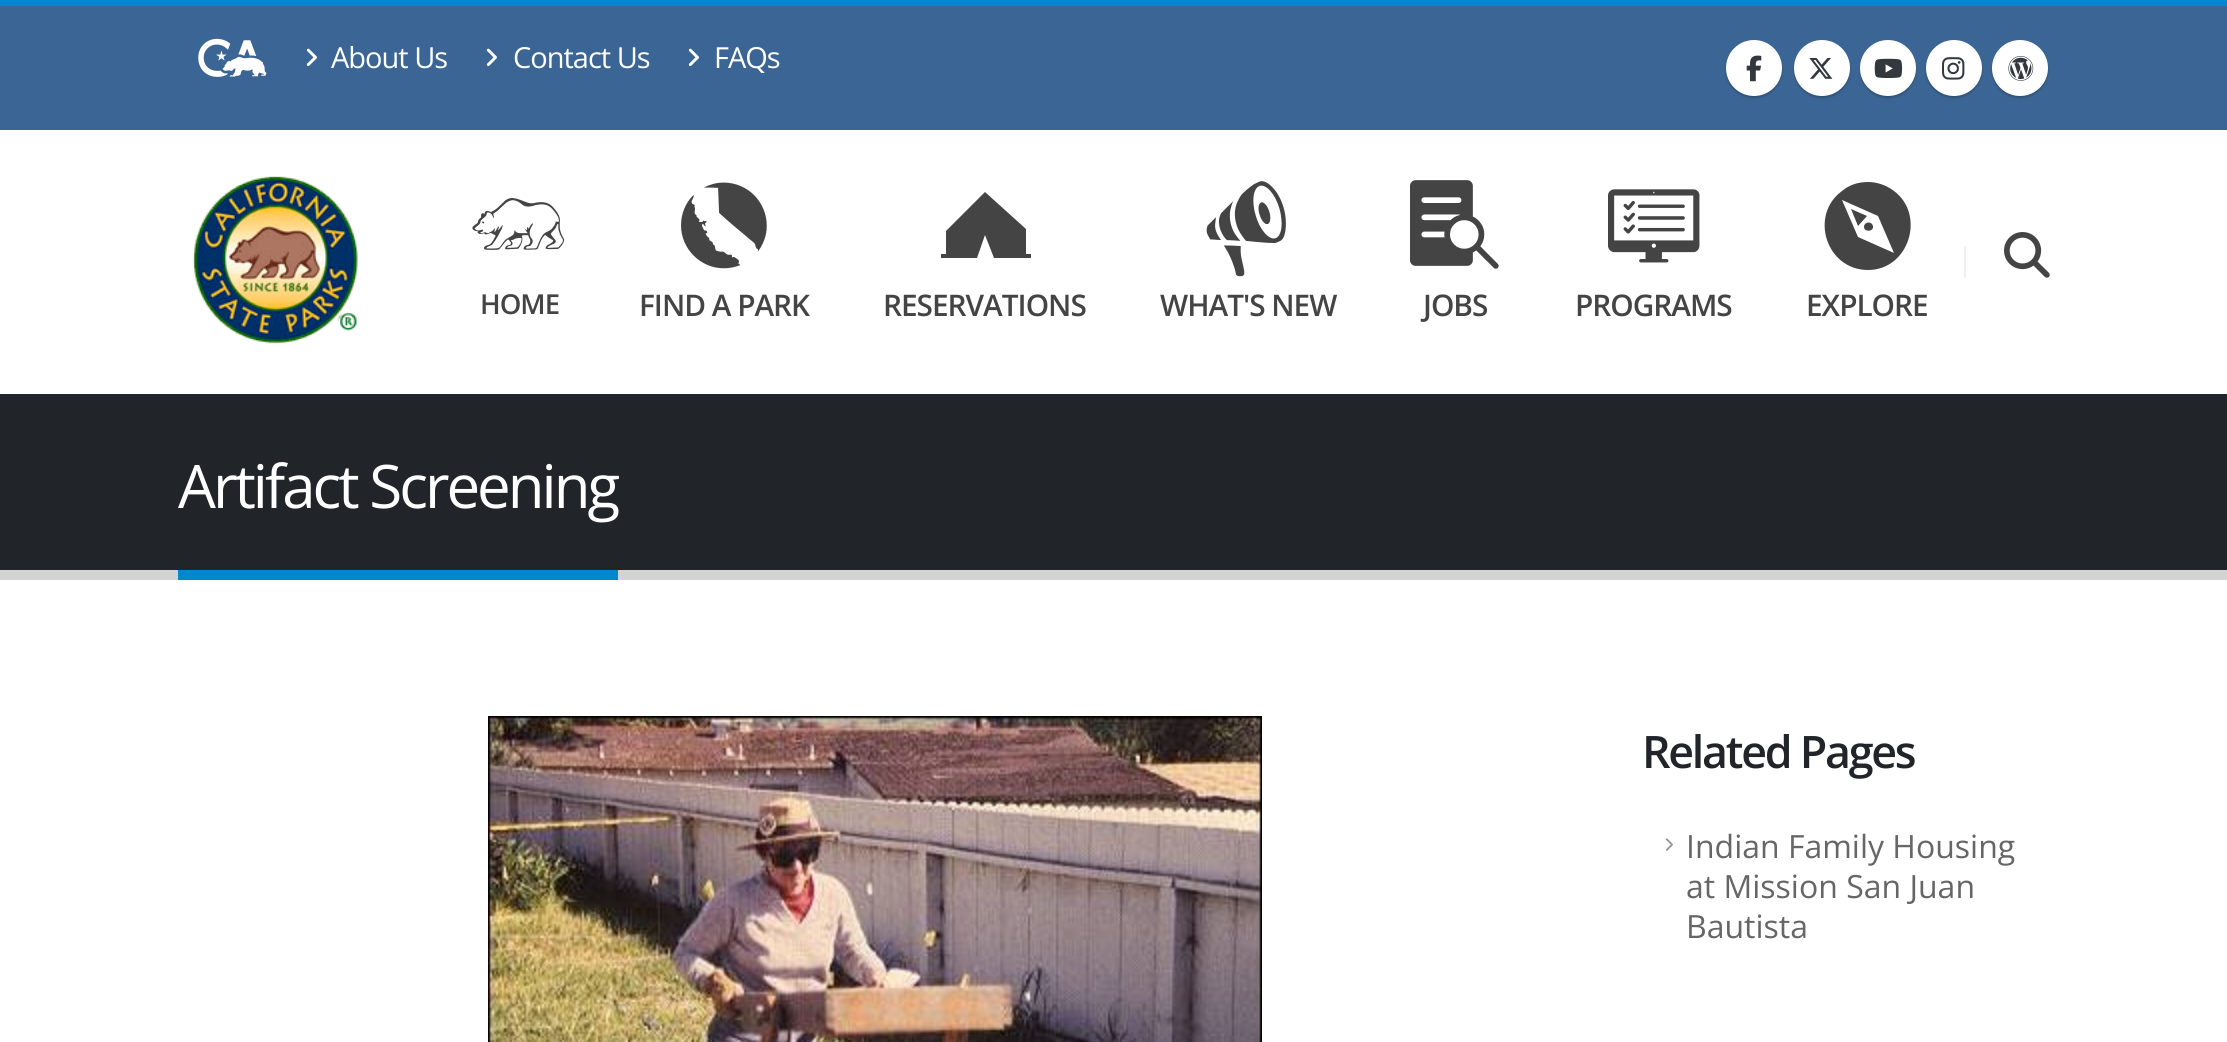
import math
import cairo

surface = cairo.ImageSurface(cairo.FORMAT_RGB24, 2227, 1042)
cr = cairo.Context(surface)
options = cairo.FontOptions()
options.set_hint_metrics(cairo.HINT_METRICS_OFF)
options.set_hint_style(cairo.HINT_STYLE_NONE)
cr.set_font_options(options)
cr.set_miter_limit(4)


def rgb(code):
    cr.set_source_rgb(*(v / 255 for v in bytes.fromhex(code[-6:])))


def tracked(x, y, s, letter, word):
    cr.move_to(x, y)
    for ch in s:
        cr.show_text(ch)
        cr.rel_move_to(letter + word * (ch == ' '), 0)


def rrect(x, y, w, h, r):
    cr.new_sub_path()
    for i, (u, v) in enumerate([(x + w - r, y + h - r), (x + r, y + h - r), (x + r, y + r), (x + w - r, y + r)]):
        cr.arc(u, v, r, i * math.pi / 2, (i + 1) * math.pi / 2)
    cr.close_path()


def soft_shadow(x, y, w, h, r, blur, alpha):
    cr.push_group_with_content(cairo.CONTENT_ALPHA)
    cr.set_operator(cairo.OPERATOR_SOURCE)
    for i in range(15, -16, -2):
        e = blur * i / 6
        if min(w, h) + 2 * e > 0:
            cr.set_source_rgba(0, 0, 0, alpha * math.erfc((i - 1) / 8.5) / 2)
            rrect(x - e, y - e, w + 2 * e, h + 2 * e, max(0, min(r + e + blur * .6, min(w, h) / 2 + e)))
            cr.fill()
    cr.mask(cr.pop_group())


def image(path, x, y, w, h):
    cr.save()
    cr.set_source_surface(cairo.ImageSurface.create_from_png(path), x, y)
    cr.rectangle(x, y, w, h)
    cr.fill()
    cr.restore()


rgb("#ffffff")
cr.paint()
rgb("#0088cc")
cr.rectangle(0, 0, 2227, 6)
cr.fill()
rgb("#3b6594")
cr.rectangle(0, 6, 2227, 124)
cr.fill()
image("img/1.png", 198, 38, 69, 39)
image("img/2.png", 306, 48, 11, 18)
image("img/2.png", 486, 48, 11, 18)
image("img/2.png", 688, 48, 11, 18)
rgb("#000000")
soft_shadow(1726, 42, 56, 56, 28, 1, 0.2)
rgb("#ffffff")
cr.arc(1754, 68, 28, 0, 2 * math.pi)
cr.fill()
image("img/3.png", 1746, 55, 16, 27)
rgb("#000000")
soft_shadow(1794, 42, 56, 56, 28, 1, 0.2)
rgb("#ffffff")
cr.arc(1822, 68, 28, 0, 2 * math.pi)
cr.fill()
image("img/4.png", 1809, 58, 24, 21)
rgb("#000000")
soft_shadow(1860, 42, 56, 56, 28, 1, 0.2)
rgb("#ffffff")
cr.arc(1888, 68, 28, 0, 2 * math.pi)
cr.fill()
image("img/5.png", 1874, 58, 29, 20)
rgb("#000000")
soft_shadow(1926, 42, 56, 56, 28, 1, 0.2)
rgb("#ffffff")
cr.arc(1954, 68, 28, 0, 2 * math.pi)
cr.fill()
image("img/6.png", 1942, 57, 23, 23)
rgb("#000000")
soft_shadow(1992, 42, 56, 56, 28, 1, 0.2)
rgb("#ffffff")
cr.arc(2020, 68, 28, 0, 2 * math.pi)
cr.fill()
image("img/7.png", 2008, 56, 26, 25)
image("img/8.png", 192, 176, 166, 168)
rgb("#f0f0f0")
cr.rectangle(1964, 246, 2, 32)
cr.fill()
image("img/9.png", 2004, 232, 46, 46)
image("img/10.png", 472, 198, 93, 52)
image("img/11.png", 681, 182, 86, 87)
rgb("#444444")
cr.new_path()
cr.move_to(1026, 254)
cr.line_to(1026, 229)
cr.line_to(985, 192)
cr.line_to(946, 231)
cr.line_to(946, 254)
cr.line_to(941, 254)
cr.line_to(941, 258)
cr.line_to(977, 258)
cr.line_to(985, 235)
cr.line_to(994, 258)
cr.line_to(1031, 258)
cr.line_to(1031, 254)
cr.close_path()
cr.fill()
image("img/12.png", 1206, 181, 80, 96)
image("img/13.png", 1410, 180, 89, 89)
image("img/14.png", 1608, 189, 92, 74)
cr.new_path()
cr.move_to(1873, 227)
cr.curve_to(1873, 232, 1864, 232, 1864, 227)
cr.curve_to(1864, 221, 1873, 221, 1873, 227)
cr.close_path()
cr.move_to(1851, 209)
cr.line_to(1858, 226)
cr.line_to(1867, 216)
cr.close_path()
cr.move_to(1868, 182)
cr.curve_to(1858, 182, 1849, 185, 1842, 191)
cr.curve_to(1809, 215, 1826, 270, 1868, 270)
cr.curve_to(1909, 270, 1926, 215, 1894, 191)
cr.curve_to(1886, 185, 1877, 182, 1868, 182)
cr.close_path()
cr.move_to(1858, 237)
cr.line_to(1842, 200)
cr.line_to(1878, 216)
cr.line_to(1894, 253)
cr.close_path()
cr.fill()
for x, y, w, h, color in [
    (0, 394, 2227, 176, "#212529"),
    (0, 570, 2227, 10, "#d3d3d4"),
    (178, 570, 440, 10, "#0088cc"),
]:
    rgb(color)
    cr.rectangle(x, y, w, h)
    cr.fill()
image("img/15.png", 488, 716, 774, 326)
image("img/16.png", 1665, 838, 8, 13)
cr.select_font_face("Open Sans")
cr.set_font_size(29)
rgb("#ffffff")
for x, y, s in [
    (331, 68, "About Us"),
    (513, 68, "Contact Us"),
    (714, 68, "FAQs"),
]:
    tracked(x, y, s, -1, 0)
cr.select_font_face("Open Sans SemiBold")
cr.set_font_size(27.5)
rgb("#444444")
tracked(480, 314, "HOME", -1, 0)
cr.set_font_size(29.75)
for x, y, s in [
    (639, 316, "FIND A PARK"),
    (883, 316, "RESERVATIONS"),
    (1160, 316, "WHAT'S NEW"),
    (1423, 316, "JOBS"),
    (1575, 316, "PROGRAMS"),
    (1806, 316, "EXPLORE"),
]:
    tracked(x, y, s, -1, 0)
cr.select_font_face("Open Sans")
cr.set_font_size(60)
rgb("#ffffff")
tracked(178, 508, "Artifact Screening", -3, 0)
cr.select_font_face("Open Sans SemiBold")
cr.set_font_size(44.75)
rgb("#212529")
tracked(1642, 768, "Related Pages", -2.25, 0)
cr.select_font_face("Open Sans")
cr.set_font_size(32)
rgb("#666666")
for x, y, s in [
    (1686, 858, "Indian Family Housing"),
    (1686, 898, "at Mission San Juan"),
    (1686, 938, "Bautista"),
]:
    cr.move_to(x, y)
    cr.show_text(s)
surface.write_to_png("page.png")
